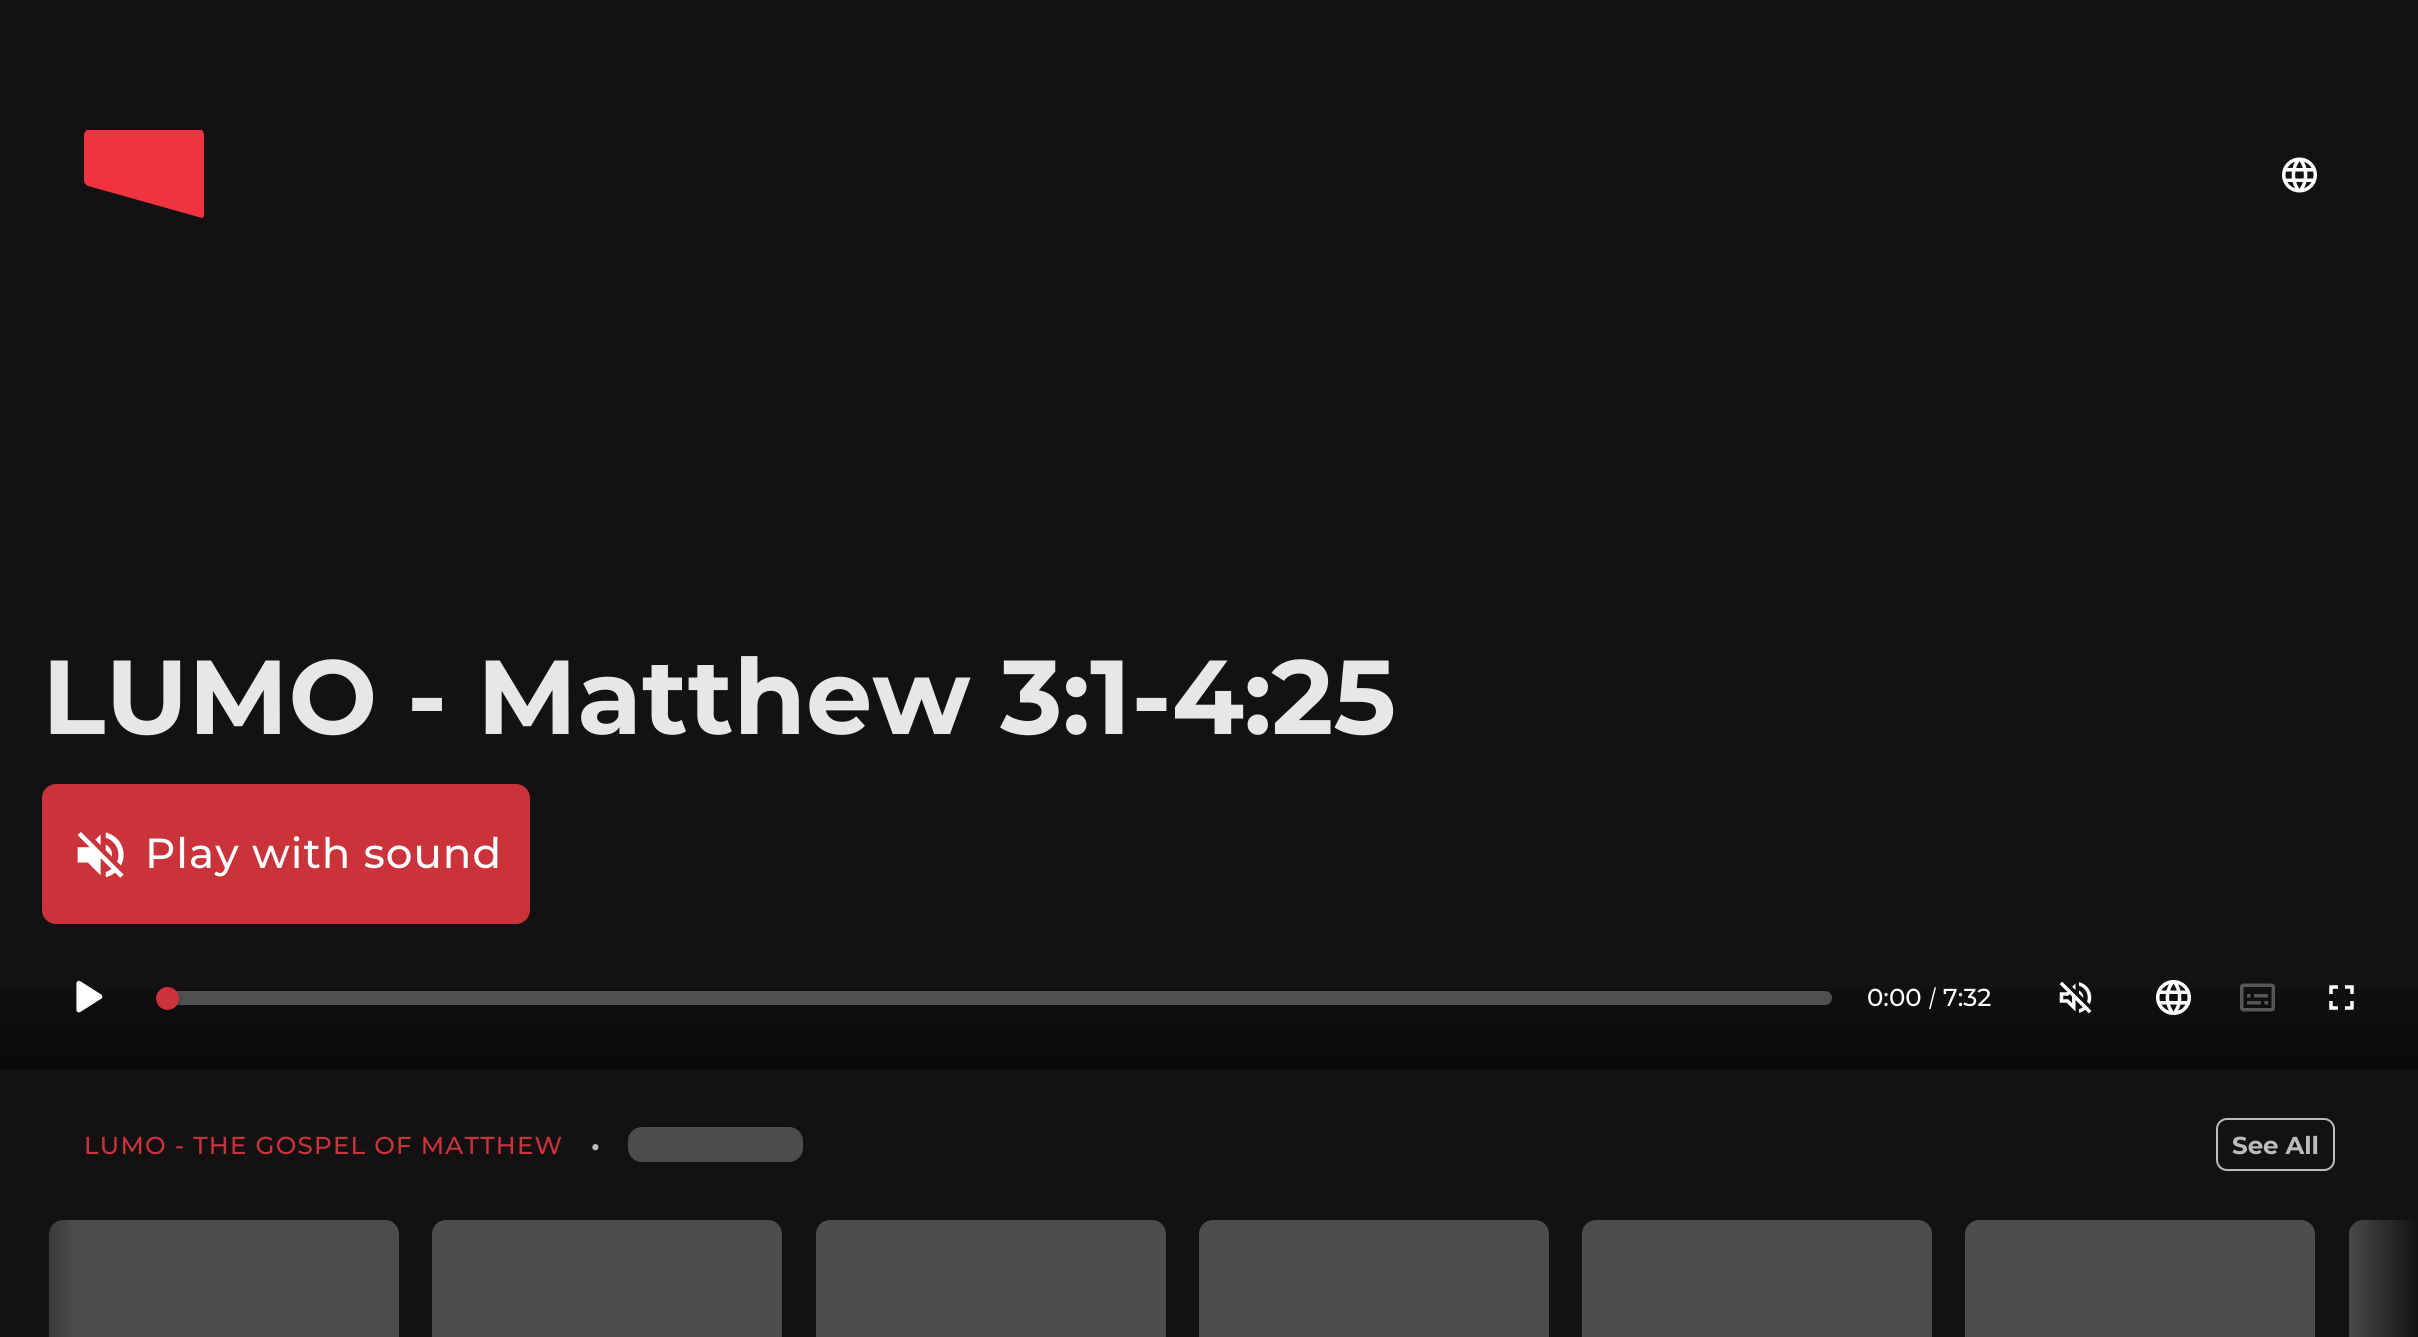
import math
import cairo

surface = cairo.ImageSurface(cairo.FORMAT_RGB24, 2418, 1337)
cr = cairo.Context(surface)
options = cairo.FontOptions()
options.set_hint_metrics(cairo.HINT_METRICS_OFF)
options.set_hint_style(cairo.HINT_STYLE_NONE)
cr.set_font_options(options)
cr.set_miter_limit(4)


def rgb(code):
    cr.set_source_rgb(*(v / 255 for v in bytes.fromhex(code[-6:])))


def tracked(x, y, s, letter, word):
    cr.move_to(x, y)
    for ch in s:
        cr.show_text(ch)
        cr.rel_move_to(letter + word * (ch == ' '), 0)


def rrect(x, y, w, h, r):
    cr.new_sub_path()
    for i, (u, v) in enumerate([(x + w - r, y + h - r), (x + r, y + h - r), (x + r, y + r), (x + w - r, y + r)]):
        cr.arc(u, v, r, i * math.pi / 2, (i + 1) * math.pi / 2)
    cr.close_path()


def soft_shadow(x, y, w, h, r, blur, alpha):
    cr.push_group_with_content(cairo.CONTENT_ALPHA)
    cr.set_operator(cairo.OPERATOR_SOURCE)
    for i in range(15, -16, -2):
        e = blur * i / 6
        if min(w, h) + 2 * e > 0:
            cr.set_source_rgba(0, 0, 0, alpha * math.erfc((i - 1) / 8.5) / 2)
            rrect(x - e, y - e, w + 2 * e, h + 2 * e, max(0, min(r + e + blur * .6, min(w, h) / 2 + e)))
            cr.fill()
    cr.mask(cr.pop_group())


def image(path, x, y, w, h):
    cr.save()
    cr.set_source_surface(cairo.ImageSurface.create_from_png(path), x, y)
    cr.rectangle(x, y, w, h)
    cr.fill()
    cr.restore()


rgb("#131111")
cr.paint()
cr.save()
cr.rectangle(84, 130, 123, 91)
cr.clip()
rgb("#ef3340")
cr.set_fill_rule(cairo.FILL_RULE_EVEN_ODD)
cr.new_path()
cr.move_to(199, 129)
cr.line_to(90, 129)
cr.curve_to(87, 129, 84, 132, 84, 135)
cr.line_to(84, 180)
cr.curve_to(84, 183, 86, 185, 88, 186)
cr.line_to(202, 218)
cr.curve_to(203, 218, 204, 217, 204, 215)
cr.line_to(204, 135)
cr.curve_to(204, 132, 202, 129, 199, 129)
cr.close_path()
cr.fill()
cr.restore()
image("img/1.png", 2282, 157, 35, 36)
rgb("#cb333b")
rrect(42, 784, 488, 140, 14)
cr.fill()
image("img/2.png", 77, 832, 47, 46)
gradient = cairo.LinearGradient(1209, 952, 1209, 1069)
gradient.add_color_stop_rgba(0, 0.075, 0.067, 0.067, 1)
gradient.add_color_stop_rgba(1, 0.043, 0.039, 0.039, 1)
cr.set_source(gradient)
cr.rectangle(0, 989, 2418, 80)
cr.fill()
image("img/3.png", 76, 980, 27, 33)
rgb("#515050")
rrect(166, 991, 1666, 14, 7)
cr.fill()
rgb("#cb333b")
cr.arc(167.5, 998.5, 11.5, 0, 2 * math.pi)
cr.fill()
cr.save()
cr.set_fill_rule(cairo.FILL_RULE_EVEN_ODD)
cr.new_path()
cr.move_to(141, 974)
cr.line_to(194, 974)
cr.line_to(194, 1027)
cr.line_to(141, 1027)
cr.close_path()
cr.move_to(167.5, 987)
cr.curve_to(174, 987, 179, 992, 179, 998.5)
cr.curve_to(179, 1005, 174, 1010, 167.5, 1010)
cr.curve_to(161, 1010, 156, 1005, 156, 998.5)
cr.curve_to(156, 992, 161, 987, 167.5, 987)
cr.close_path()
cr.clip()
rgb("#000000")
soft_shadow(156, 989, 23, 23, 11.5, 4.5, 0.12)
cr.restore()
cr.save()
cr.set_fill_rule(cairo.FILL_RULE_EVEN_ODD)
cr.new_path()
cr.move_to(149, 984)
cr.line_to(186, 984)
cr.line_to(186, 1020)
cr.line_to(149, 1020)
cr.close_path()
cr.move_to(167.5, 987)
cr.curve_to(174, 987, 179, 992, 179, 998.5)
cr.curve_to(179, 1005, 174, 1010, 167.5, 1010)
cr.curve_to(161, 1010, 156, 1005, 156, 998.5)
cr.curve_to(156, 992, 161, 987, 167.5, 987)
cr.close_path()
cr.clip()
rgb("#000000")
soft_shadow(156, 991, 23, 22, 11, 2, 0.14)
cr.restore()
cr.save()
cr.set_fill_rule(cairo.FILL_RULE_EVEN_ODD)
cr.new_path()
cr.move_to(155, 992)
cr.line_to(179, 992)
cr.line_to(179, 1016)
cr.line_to(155, 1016)
cr.close_path()
cr.move_to(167.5, 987)
cr.curve_to(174, 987, 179, 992, 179, 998.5)
cr.curve_to(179, 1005, 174, 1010, 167.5, 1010)
cr.curve_to(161, 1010, 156, 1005, 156, 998.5)
cr.curve_to(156, 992, 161, 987, 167.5, 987)
cr.close_path()
cr.clip()
rgb("#000000")
soft_shadow(159, 996, 16, 16, 8, 1, 0.2)
cr.restore()
image("img/4.png", 2059, 981, 33, 33)
image("img/5.png", 2156, 980, 35, 35)
image("img/6.png", 2240, 983, 35, 29)
image("img/7.png", 2329, 985, 25, 25)
rgb("#4d4d4d")
rrect(628, 1127, 175, 35, 14)
cr.fill()
rrect(2217, 1119, 117, 51, 10)
rgb("#bbbcbc")
cr.stroke()
rgb("#4d4d4d")
rrect(49, 1220, 350, 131, 14)
cr.fill()
rrect(432, 1220, 350, 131, 14)
cr.fill()
rrect(816, 1220, 350, 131, 14)
cr.fill()
rrect(1199, 1220, 350, 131, 14)
cr.fill()
rrect(1582, 1220, 350, 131, 14)
cr.fill()
rrect(1965, 1220, 350, 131, 14)
cr.fill()
cr.new_path()
cr.move_to(2363, 1220)
cr.line_to(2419, 1220)
cr.line_to(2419, 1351)
cr.line_to(2363, 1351)
cr.curve_to(2355.5, 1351, 2349, 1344.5, 2349, 1337)
cr.line_to(2349, 1234)
cr.curve_to(2349, 1226.5, 2355.5, 1220, 2363, 1220)
cr.close_path()
cr.fill()
gradient = cairo.LinearGradient(74, 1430, 0, 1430)
gradient.add_color_stop_rgba(0, 0.075, 0.067, 0.067, 0)
gradient.add_color_stop_rgba(1, 0.075, 0.067, 0.067, 1)
cr.set_source(gradient)
cr.rectangle(49, 1220, 22, 117)
cr.fill()
gradient = cairo.LinearGradient(2345, 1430, 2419, 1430)
gradient.add_color_stop_rgba(0, 0.075, 0.067, 0.067, 0)
gradient.add_color_stop_rgba(1, 0.075, 0.067, 0.067, 1)
cr.set_source(gradient)
cr.rectangle(2349, 1220, 69, 117)
cr.fill()
cr.select_font_face("Montserrat", cairo.FONT_SLANT_NORMAL, cairo.FONT_WEIGHT_BOLD)
cr.set_font_size(105)
rgb("#e7e7e7")
cr.move_to(42, 734)
cr.show_text("LUMO - Matthew 3:1-4:25")
cr.select_font_face("Montserrat Medium")
cr.set_font_size(42)
rgb("#ffffff")
tracked(145, 868, "Play with sound", 1, 0)
cr.set_font_size(24.5)
cr.move_to(1867, 1006)
cr.show_text("0:00")
cr.select_font_face("Noto Serif Medium")
cr.move_to(1929, 1006)
cr.show_text("/")
cr.select_font_face("Montserrat Medium")
cr.move_to(1943, 1006)
cr.show_text("7:32")
rgb("#cb333b")
tracked(84, 1154, "LUMO - THE GOSPEL OF MATTHEW", 1.25, 0)
cr.select_font_face("Montserrat", cairo.FONT_SLANT_NORMAL, cairo.FONT_WEIGHT_BOLD)
rgb("#bbbcbc")
tracked(591, 1154, "•", 1.25, 0)
cr.move_to(2232, 1154)
cr.show_text("See All")
surface.write_to_png("page.png")
